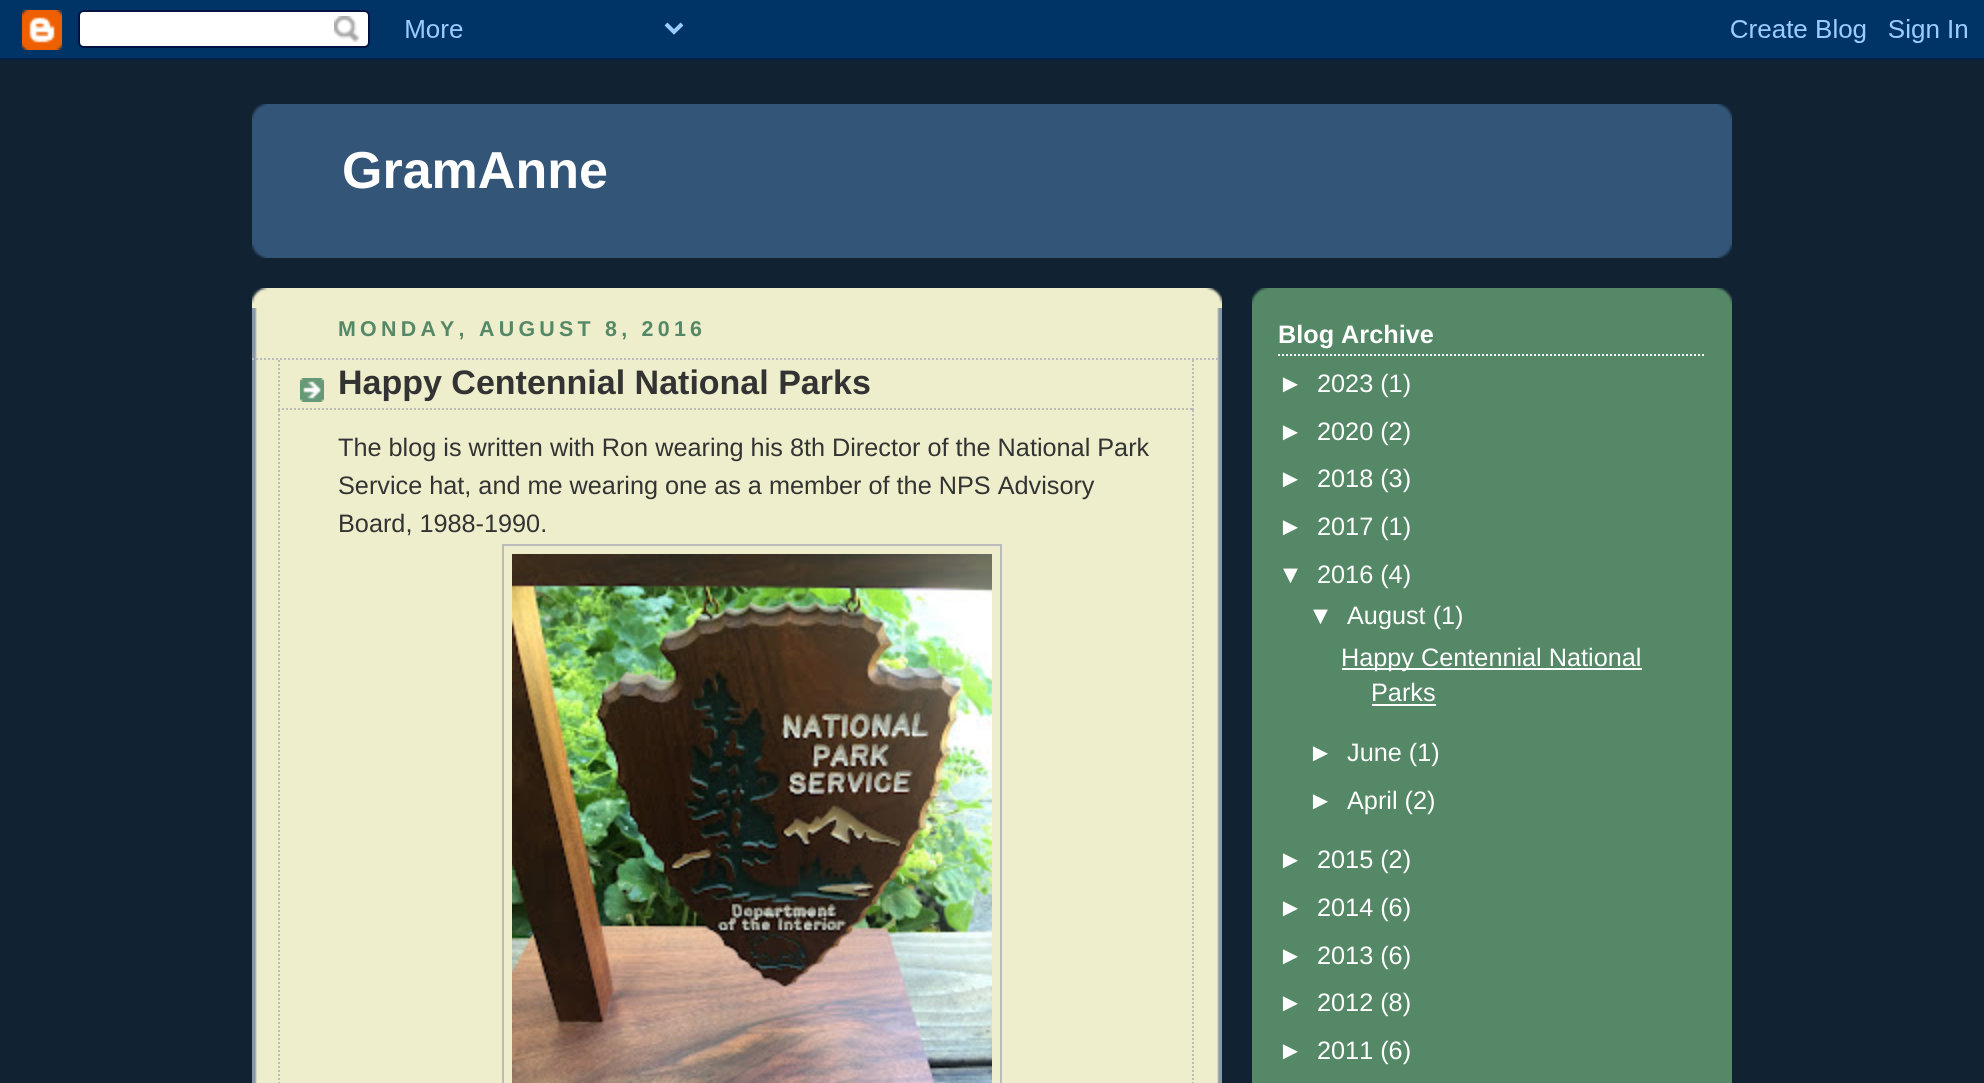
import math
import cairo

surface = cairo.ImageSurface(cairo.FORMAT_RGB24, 1984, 1083)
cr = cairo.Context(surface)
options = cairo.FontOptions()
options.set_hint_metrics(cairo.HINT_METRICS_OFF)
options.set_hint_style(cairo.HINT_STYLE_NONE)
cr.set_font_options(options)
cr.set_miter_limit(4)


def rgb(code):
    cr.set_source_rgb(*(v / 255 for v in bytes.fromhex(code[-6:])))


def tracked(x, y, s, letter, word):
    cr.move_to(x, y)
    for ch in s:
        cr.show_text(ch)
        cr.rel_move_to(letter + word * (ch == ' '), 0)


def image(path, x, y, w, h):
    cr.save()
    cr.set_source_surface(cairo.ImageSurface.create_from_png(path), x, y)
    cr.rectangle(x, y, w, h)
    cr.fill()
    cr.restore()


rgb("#112233")
cr.paint()
image("img/1.png", 0, 0, 1984, 60)
rgb("#335577")
cr.rectangle(252, 104, 1480, 154)
cr.fill()
image("img/2.png", 252, 104, 1480, 15)
image("img/3.png", 252, 243, 1480, 15)
rgb("#eeeecc")
cr.rectangle(252, 288, 970, 795)
cr.fill()
image("img/4.png", 252, 288, 970, 16)
image("img/5.png", 252, 308, 970, 775)
cr.new_path()
cr.move_to(252, 359)
cr.line_to(1220, 359)
rgb("#bbbbbb")
cr.set_dash([2, 2])
cr.stroke()
image("img/6.png", 300, 378, 24, 24)
cr.new_path()
cr.move_to(1193, 360)
cr.line_to(1193, 410)
cr.stroke()
cr.new_path()
cr.move_to(278, 409)
cr.line_to(1194, 409)
cr.stroke()
cr.new_path()
cr.move_to(279, 360)
cr.line_to(279, 410)
cr.stroke()
cr.new_path()
cr.move_to(1193, 410)
cr.line_to(1193, 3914)
cr.stroke()
cr.new_path()
cr.move_to(279, 410)
cr.line_to(279, 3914)
cr.stroke()
cr.rectangle(503, 545, 498, 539)
cr.set_dash([])
cr.stroke()
image("img/7.png", 512, 554, 480, 529)
rgb("#558866")
cr.rectangle(1252, 288, 480, 795)
cr.fill()
image("img/8.png", 1252, 288, 480, 16)
cr.new_path()
cr.move_to(1278, 355)
cr.line_to(1706, 355)
rgb("#ffffff")
cr.set_dash([2, 2])
cr.stroke()
cr.rectangle(1342, 668, 300, 2)
cr.fill()
cr.rectangle(1372, 704, 64, 2)
cr.fill()
cr.select_font_face("Liberation Sans", cairo.FONT_SLANT_NORMAL, cairo.FONT_WEIGHT_BOLD)
cr.set_font_size(52)
cr.move_to(342, 188)
cr.show_text("GramAnne")
cr.set_font_size(21.4)
rgb("#558866")
tracked(338, 336, "MONDAY, AUGUST 8, 2016", 4.25, 0)
cr.set_font_size(34)
rgb("#333333")
cr.move_to(338, 394)
cr.show_text("Happy Centennial National Parks")
cr.select_font_face("Liberation Sans")
cr.set_font_size(25.25)
for x, y, s in [
    (338, 456, "The blog is written with Ron wearing his 8th Director of the National Park"),
    (338, 494, "Service hat, and me wearing one as a member of the NPS Advisory"),
    (338, 532, "Board, 1988-1990."),
]:
    cr.move_to(x, y)
    cr.show_text(s)
cr.select_font_face("Liberation Sans", cairo.FONT_SLANT_NORMAL, cairo.FONT_WEIGHT_BOLD)
rgb("#ffffff")
cr.move_to(1278, 343)
cr.show_text("Blog Archive")
cr.select_font_face("Liberation Sans")
for x, y, s in [
    (1278, 392, "►"),
    (1317, 392, "2023 (1)"),
    (1278, 440, "►"),
    (1317, 440, "2020 (2)"),
    (1278, 487, "►"),
    (1317, 487, "2018 (3)"),
    (1278, 535, "►"),
    (1317, 535, "2017 (1)"),
    (1278, 583, "▼"),
    (1317, 583, "2016 (4)"),
    (1308, 624, "▼"),
    (1347, 624, "August (1)"),
    (1341, 666, "Happy Centennial National"),
    (1371, 701, "Parks"),
    (1308, 761, "►"),
    (1347, 761, "June (1)"),
    (1308, 809, "►"),
    (1347, 809, "April (2)"),
    (1278, 868, "►"),
    (1317, 868, "2015 (2)"),
    (1278, 916, "►"),
    (1317, 916, "2014 (6)"),
    (1278, 964, "►"),
    (1317, 964, "2013 (6)"),
    (1278, 1011, "►"),
    (1317, 1011, "2012 (8)"),
    (1278, 1059, "►"),
    (1317, 1059, "2011 (6)"),
]:
    cr.move_to(x, y)
    cr.show_text(s)
surface.write_to_png("page.png")
